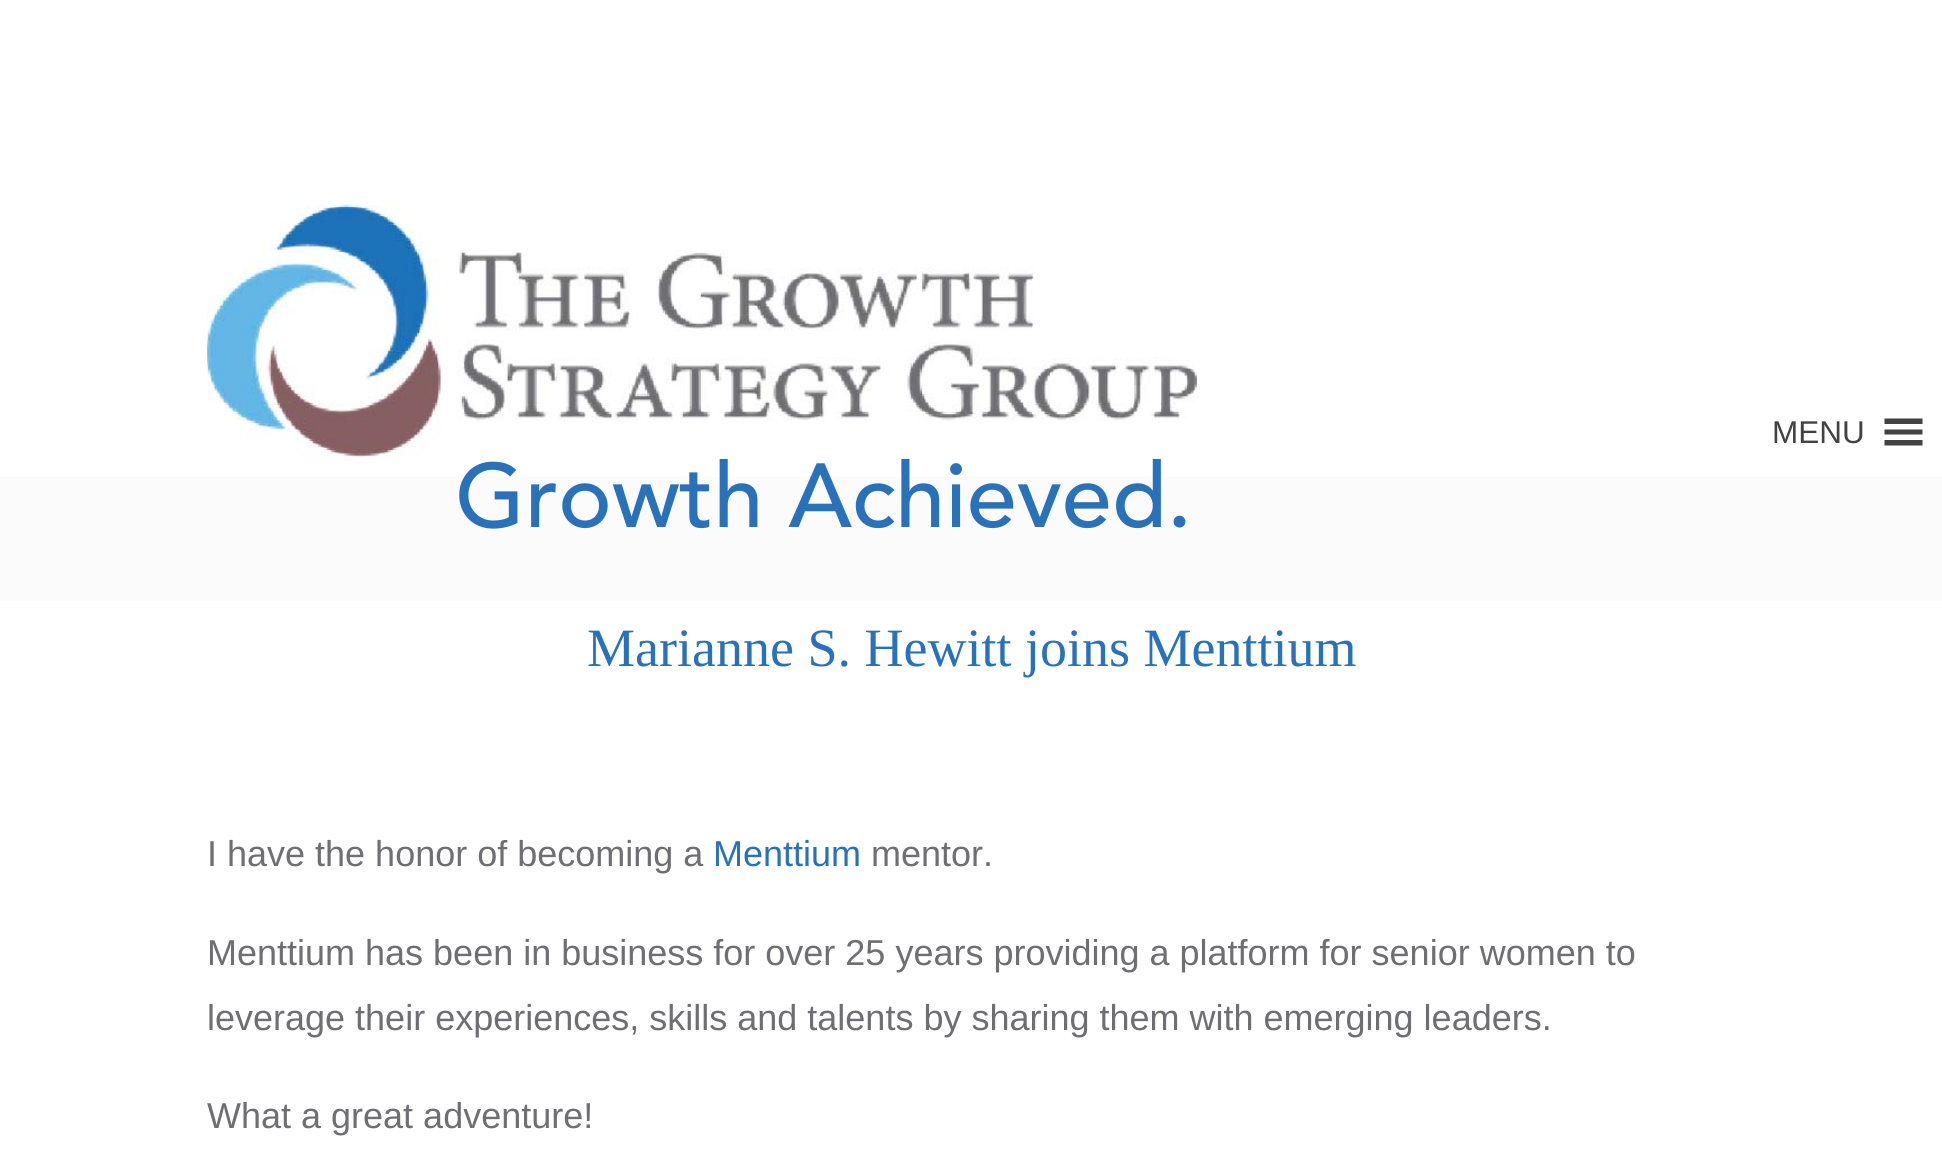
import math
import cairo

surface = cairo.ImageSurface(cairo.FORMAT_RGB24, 1942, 1155)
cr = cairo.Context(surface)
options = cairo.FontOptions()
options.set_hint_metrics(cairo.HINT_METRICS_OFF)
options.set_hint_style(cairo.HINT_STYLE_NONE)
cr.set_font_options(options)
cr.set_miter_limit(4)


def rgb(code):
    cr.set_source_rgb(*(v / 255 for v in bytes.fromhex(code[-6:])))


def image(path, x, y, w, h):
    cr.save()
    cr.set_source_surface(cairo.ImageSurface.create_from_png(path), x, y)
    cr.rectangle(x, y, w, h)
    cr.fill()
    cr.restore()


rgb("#fbfbfb")
cr.paint()
rgb("#ffffff")
cr.rectangle(0, 0, 1942, 477)
cr.fill()
rgb("#424242")
cr.new_path()
cr.move_to(1884.5, 445.5)
cr.line_to(1922.5, 445.5)
cr.line_to(1922.5, 440)
cr.line_to(1884.5, 440)
cr.close_path()
cr.move_to(1884.5, 418.5)
cr.line_to(1884.5, 424)
cr.line_to(1922.5, 424)
cr.line_to(1922.5, 418.5)
cr.close_path()
cr.move_to(1884.5, 434.5)
cr.line_to(1922.5, 434.5)
cr.line_to(1922.5, 429.5)
cr.line_to(1884.5, 429.5)
cr.close_path()
cr.fill()
image("img/1.png", 207, 204, 990, 253)
rgb("#ffffff")
cr.rectangle(0, 601, 1942, 554)
cr.fill()
cr.select_font_face("Liberation Sans")
cr.set_font_size(31.5)
rgb("#424242")
cr.move_to(1772, 443)
cr.show_text("MENU")
cr.select_font_face("Avenir Medium")
cr.set_font_size(90)
rgb("#2972b9")
cr.move_to(455, 527)
cr.show_text("Growth Achieved.")
cr.select_font_face("Liberation Serif")
cr.set_font_size(54)
cr.move_to(587, 666)
cr.show_text("Marianne S. Hewitt joins Menttium")
cr.select_font_face("Liberation Sans")
cr.set_font_size(36)
rgb("#6e6e73")
cr.move_to(207, 866)
cr.show_text("I have the honor of becoming a")
rgb("#2972b9")
cr.move_to(713, 866)
cr.show_text("Menttium")
rgb("#6e6e73")
for x, y, s in [
    (871, 866, "mentor."),
    (207, 965, "Menttium has been in business for over 25 years providing a platform for senior women to"),
    (207, 1030, "leverage their experiences, skills and talents by sharing them with emerging leaders."),
    (207, 1128, "What a great adventure!"),
]:
    cr.move_to(x, y)
    cr.show_text(s)
surface.write_to_png("page.png")
